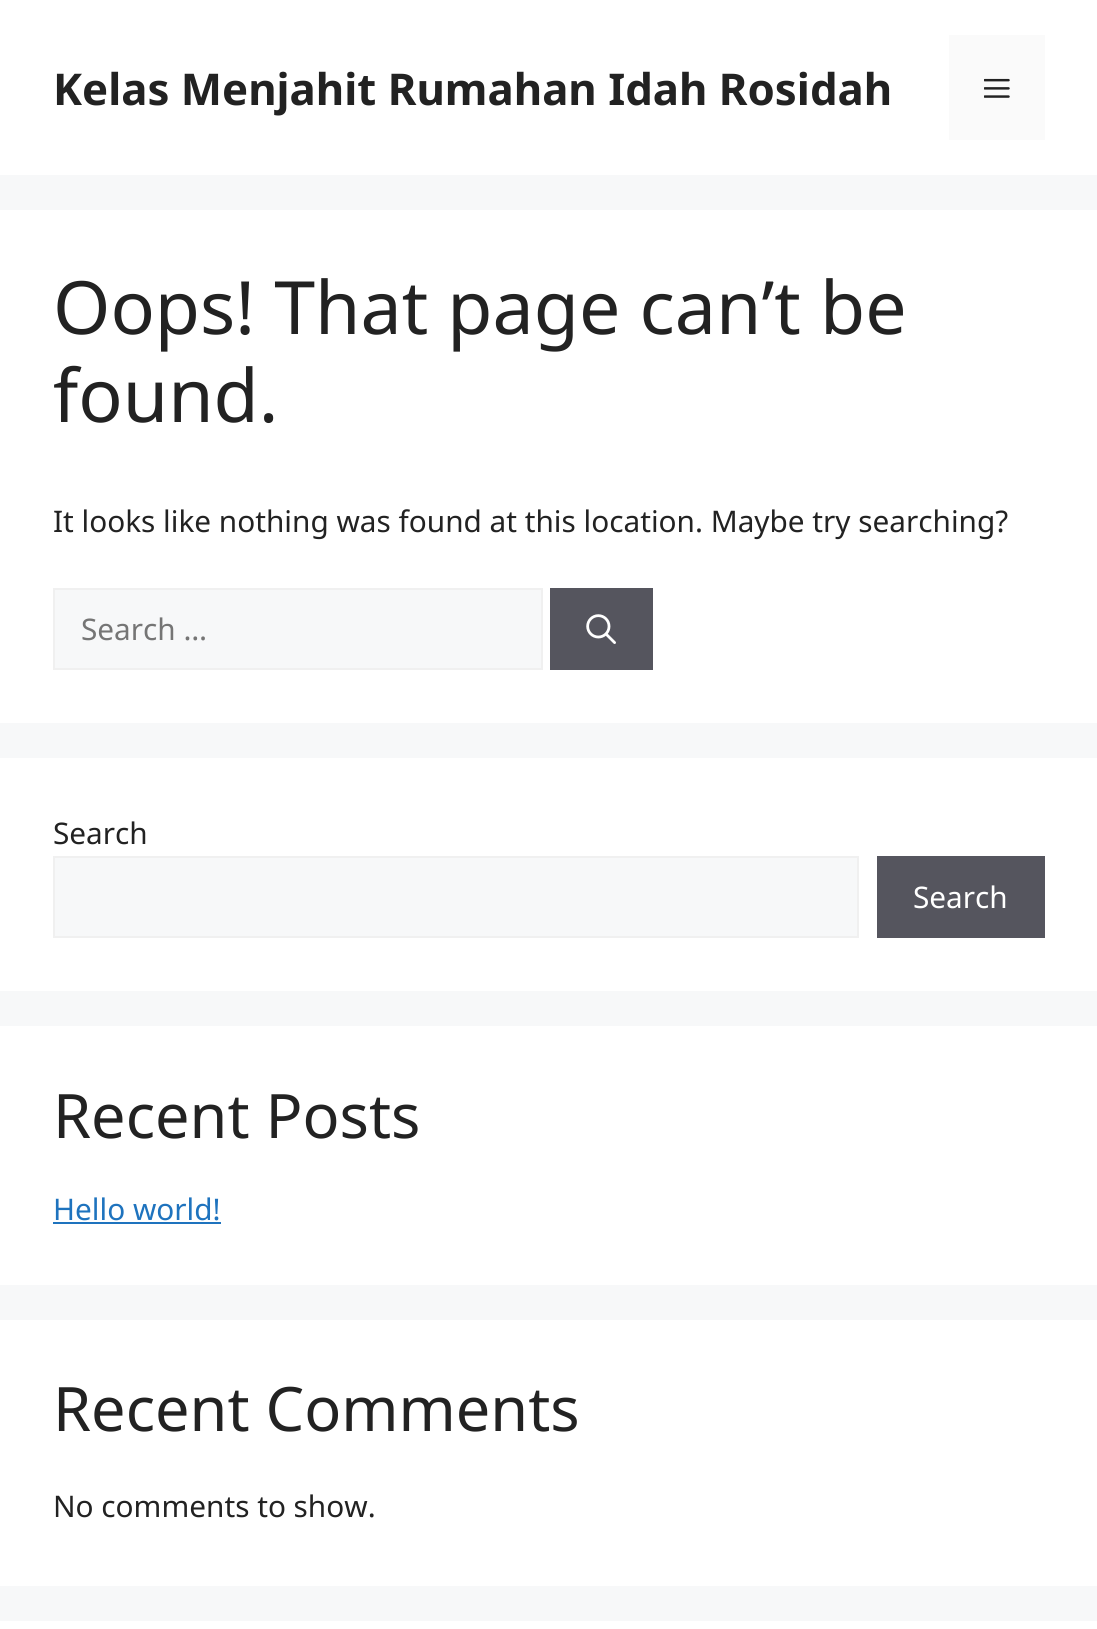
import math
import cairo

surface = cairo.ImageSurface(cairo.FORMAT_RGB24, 1097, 1629)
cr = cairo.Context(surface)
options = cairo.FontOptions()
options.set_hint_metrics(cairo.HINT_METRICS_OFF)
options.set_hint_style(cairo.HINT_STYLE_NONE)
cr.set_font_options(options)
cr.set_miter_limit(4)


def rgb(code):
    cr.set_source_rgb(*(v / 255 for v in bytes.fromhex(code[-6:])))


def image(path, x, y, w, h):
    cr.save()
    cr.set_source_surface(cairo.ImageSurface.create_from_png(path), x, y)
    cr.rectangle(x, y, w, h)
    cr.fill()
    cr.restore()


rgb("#f7f8f9")
cr.paint()
rgb("#ffffff")
cr.rectangle(0, 0, 1097, 175)
cr.fill()
rgb("#fafafa")
cr.rectangle(949, 35, 96, 105)
cr.fill()
image("img/1.png", 984, 78, 26, 20)
rgb("#ffffff")
cr.rectangle(0, 210, 1097, 513)
cr.fill()
rgb("#f7f8f9")
cr.rectangle(54, 589, 488, 80)
cr.fill_preserve()
rgb("#f0f0f0")
cr.stroke()
rgb("#55555e")
cr.rectangle(550, 588, 103, 82)
cr.fill()
image("img/2.png", 586, 614, 30, 30)
rgb("#ffffff")
cr.rectangle(0, 758, 1097, 233)
cr.fill()
rgb("#f7f8f9")
cr.rectangle(54, 857, 804, 80)
cr.fill_preserve()
rgb("#f0f0f0")
cr.stroke()
for x, y, w, h, color in [
    (877, 856, 168, 82, "#55555e"),
    (0, 1026, 1097, 259, "#ffffff"),
    (53, 1222, 168, 2, "#1e73be"),
    (0, 1320, 1097, 266, "#ffffff"),
    (0, 1621, 1097, 8, "#ffffff"),
]:
    rgb(color)
    cr.rectangle(x, y, w, h)
    cr.fill()
cr.select_font_face("Noto Sans", cairo.FONT_SLANT_NORMAL, cairo.FONT_WEIGHT_BOLD)
cr.set_font_size(43.75)
rgb("#222222")
cr.move_to(53, 105)
cr.show_text("Kelas Menjahit Rumahan Idah Rosidah")
cr.select_font_face("Noto Sans")
cr.set_font_size(73.5)
cr.move_to(53, 334)
cr.show_text("Oops! That page can’t be")
cr.move_to(53, 422)
cr.show_text("found.")
cr.set_font_size(29.75)
cr.move_to(53, 532)
cr.show_text("It looks like nothing was found at this location. Maybe try searching?")
rgb("#757575")
cr.move_to(81, 640)
cr.show_text("Search …")
rgb("#222222")
cr.move_to(53, 844)
cr.show_text("Search")
rgb("#ffffff")
cr.move_to(913, 908)
cr.show_text("Search")
cr.set_font_size(61.25)
rgb("#222222")
cr.move_to(53, 1138)
cr.show_text("Recent Posts")
cr.set_font_size(29.75)
rgb("#1e73be")
cr.move_to(53, 1220)
cr.show_text("Hello world!")
cr.set_font_size(61.25)
rgb("#222222")
cr.move_to(53, 1431)
cr.show_text("Recent Comments")
cr.set_font_size(29.75)
cr.move_to(53, 1517)
cr.show_text("No comments to show.")
surface.write_to_png("page.png")
